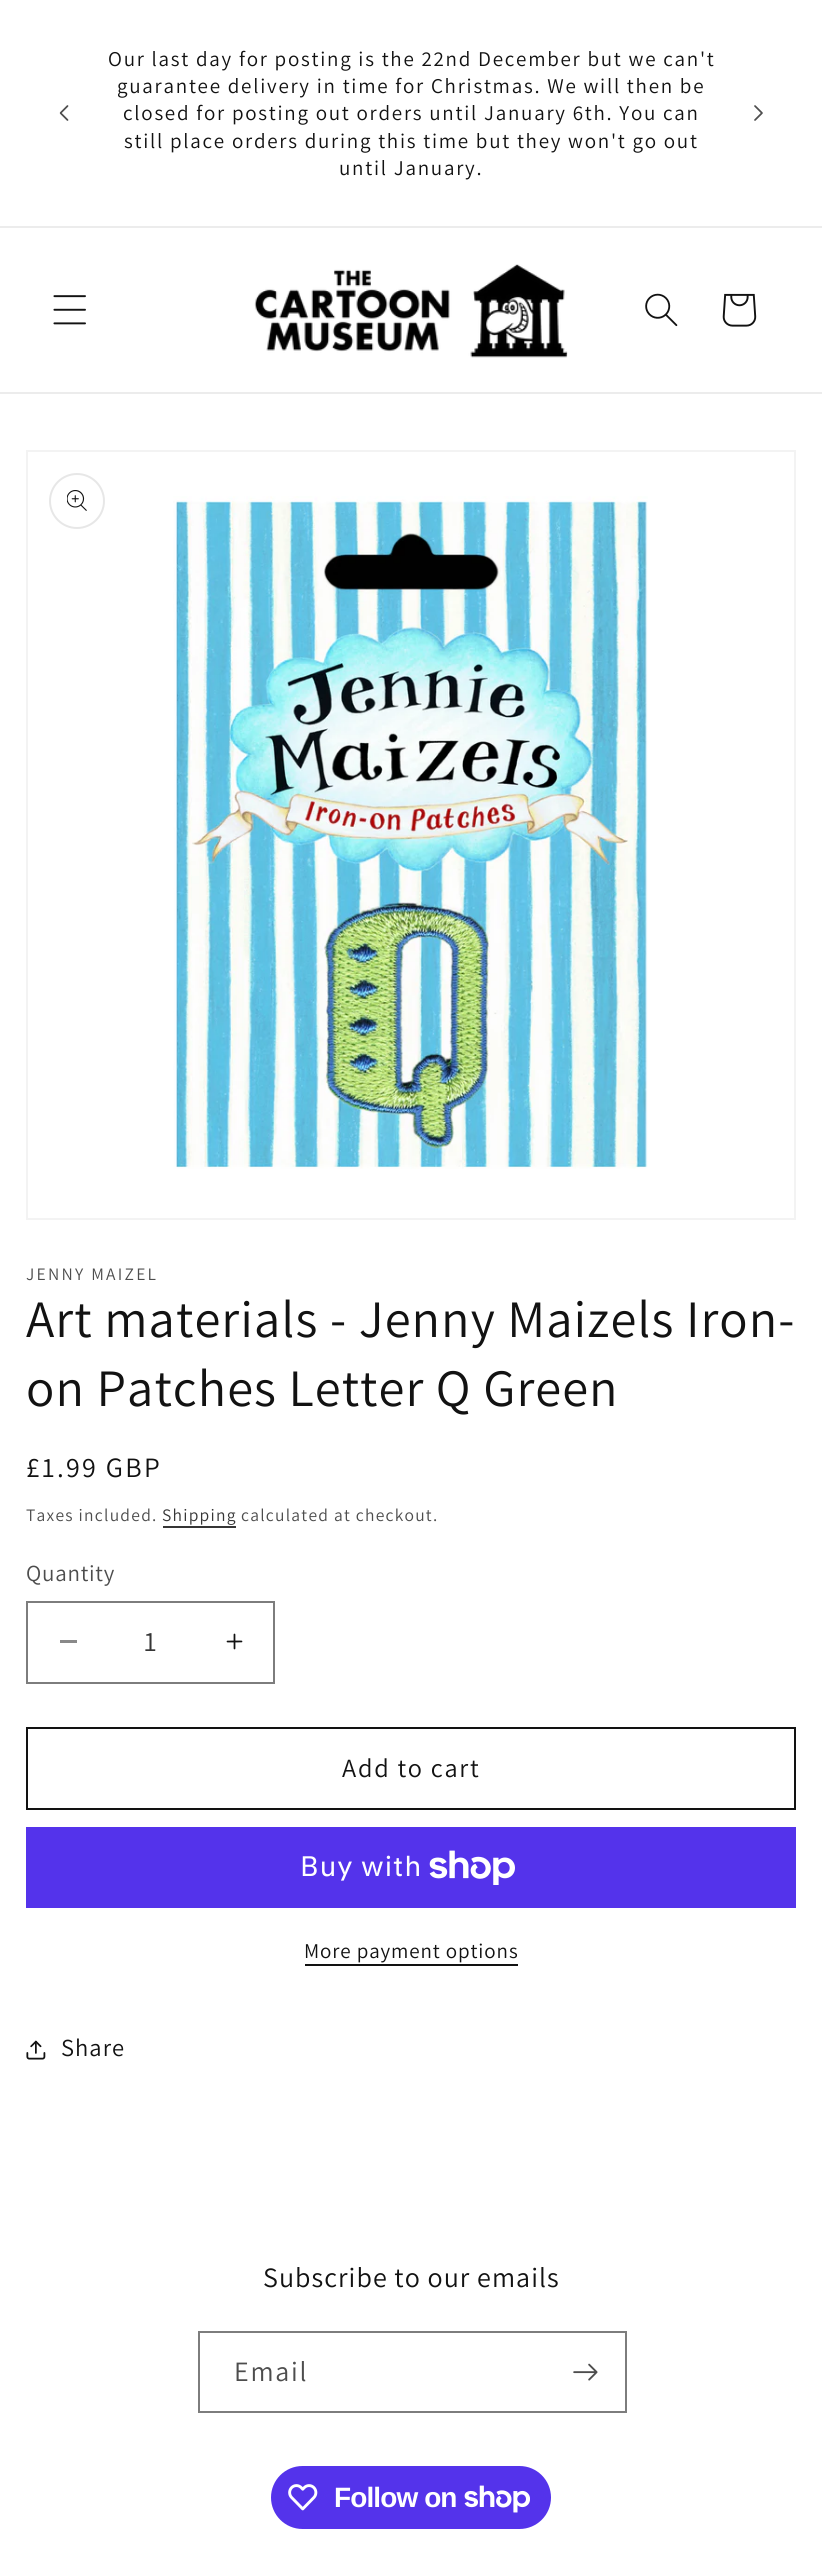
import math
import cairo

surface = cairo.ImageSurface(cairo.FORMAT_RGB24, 822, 2562)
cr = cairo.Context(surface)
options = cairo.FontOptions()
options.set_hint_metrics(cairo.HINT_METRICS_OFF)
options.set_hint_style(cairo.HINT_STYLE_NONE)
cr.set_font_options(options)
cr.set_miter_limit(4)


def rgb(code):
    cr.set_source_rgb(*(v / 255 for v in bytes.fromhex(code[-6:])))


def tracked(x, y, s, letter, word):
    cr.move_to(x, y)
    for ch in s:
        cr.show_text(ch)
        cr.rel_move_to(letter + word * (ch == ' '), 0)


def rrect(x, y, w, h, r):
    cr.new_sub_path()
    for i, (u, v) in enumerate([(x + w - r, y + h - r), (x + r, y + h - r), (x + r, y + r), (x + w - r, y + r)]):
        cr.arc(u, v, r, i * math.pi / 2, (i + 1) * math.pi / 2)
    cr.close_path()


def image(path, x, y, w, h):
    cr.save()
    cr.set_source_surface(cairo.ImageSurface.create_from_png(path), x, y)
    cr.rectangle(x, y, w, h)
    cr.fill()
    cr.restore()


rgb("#ffffff")
cr.paint()
rgb("#ececec")
cr.rectangle(0, 226, 822, 2)
cr.fill()
image("img/1.png", 59, 105, 10, 16)
image("img/2.png", 754, 105, 9, 16)
cr.rectangle(0, 392, 822, 2)
cr.fill()
image("img/3.png", 53, 295, 33, 30)
image("img/4.png", 254, 264, 314, 94)
image("img/5.png", 645, 293, 33, 34)
image("img/6.png", 722, 293, 35, 34)
cr.rectangle(27, 451, 768, 768)
rgb("#f3f3f3")
cr.stroke()
cr.arc(77, 501, 27, 0, 2 * math.pi)
rgb("#e7e7e7")
cr.stroke()
image("img/7.png", 67, 490, 20, 21)
image("img/8.png", 173, 496, 475, 673)
rgb("#363636")
cr.rectangle(163, 1526, 73, 2)
cr.fill()
rgb("#898989")
cr.rectangle(60, 1640, 17, 3)
cr.fill()
image("img/9.png", 226, 1633, 17, 17)
cr.rectangle(27, 1602, 247, 81)
rgb("#7d7d7d")
cr.stroke()
cr.rectangle(27, 1728, 768, 81)
rgb("#121212")
cr.stroke()
rgb("#5433eb")
cr.rectangle(26, 1827, 770, 81)
cr.fill()
image("img/10.png", 429, 1850, 86, 35)
rgb("#121212")
cr.rectangle(305, 1964, 213, 2)
cr.fill()
image("img/11.png", 26, 2040, 20, 20)
cr.rectangle(199, 2332, 427, 80)
rgb("#7d7d7d")
cr.stroke()
image("img/12.png", 573, 2363, 25, 18)
rgb("#5433eb")
rrect(271, 2466, 280, 63, 31.5)
cr.fill()
image("img/13.png", 288, 2484, 30, 27)
image("img/14.png", 464, 2485, 66, 28)
cr.select_font_face("Assistant")
cr.set_font_size(21)
rgb("#121212")
for x, y, s in [
    (108, 66, "Our last day for posting is the 22nd December but we can't"),
    (117, 93, "guarantee delivery in time for Christmas. We will then be"),
    (123, 120, "closed for posting out orders until January 6th. You can"),
    (124, 148, "still place orders during this time but they won't go out"),
    (339, 175, "until January."),
]:
    tracked(x, y, s, 1.75, 0)
cr.set_font_size(17.5)
rgb("#4d4d4d")
tracked(26, 1280, "JENNY MAIZEL", 2.25, 0)
cr.set_font_size(52.5)
rgb("#121212")
tracked(26, 1337, "Art materials - Jenny Maizels Iron-", 1.05, 0)
tracked(26, 1406, "on Patches Letter Q Green", 1.05, 0)
cr.set_font_size(28)
tracked(26, 1477, "£1.99 GBP", 2.25, 0)
cr.set_font_size(17.5)
rgb("#4d4d4d")
tracked(26, 1521, "Taxes included.", 1.25, 0)
rgb("#363636")
tracked(162, 1521, "Shipping", 1.25, 0)
rgb("#4d4d4d")
tracked(241, 1521, "calculated at checkout.", 1.25, 0)
cr.set_font_size(23)
tracked(26, 1581, "Quantity", 0.75, 0)
cr.set_font_size(28)
rgb("#363636")
cr.move_to(144, 1651)
cr.show_text("1")
cr.set_font_size(26.25)
rgb("#121212")
tracked(342, 1777, "Add to cart", 1.75, 0)
cr.select_font_face("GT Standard")
cr.set_font_size(28)
rgb("#ffffff")
tracked(300, 1876, "Buy with", 1.05, 0)
cr.select_font_face("Assistant")
cr.set_font_size(21)
rgb("#121212")
tracked(304, 1958, "More payment options", 0.9, 0)
cr.set_font_size(24.5)
tracked(61, 2056, "Share", 1.05, 0)
cr.set_font_size(28)
tracked(263, 2287, "Subscribe to our emails", 1.05, 0)
rgb("#4d4d4d")
tracked(234, 2381, "Email", 1.75, 0)
cr.select_font_face("Liberation Sans", cairo.FONT_SLANT_NORMAL, cairo.FONT_WEIGHT_BOLD)
rgb("#ffffff")
tracked(334, 2507, "Follow on", -0.9, 0)
surface.write_to_png("page.png")
